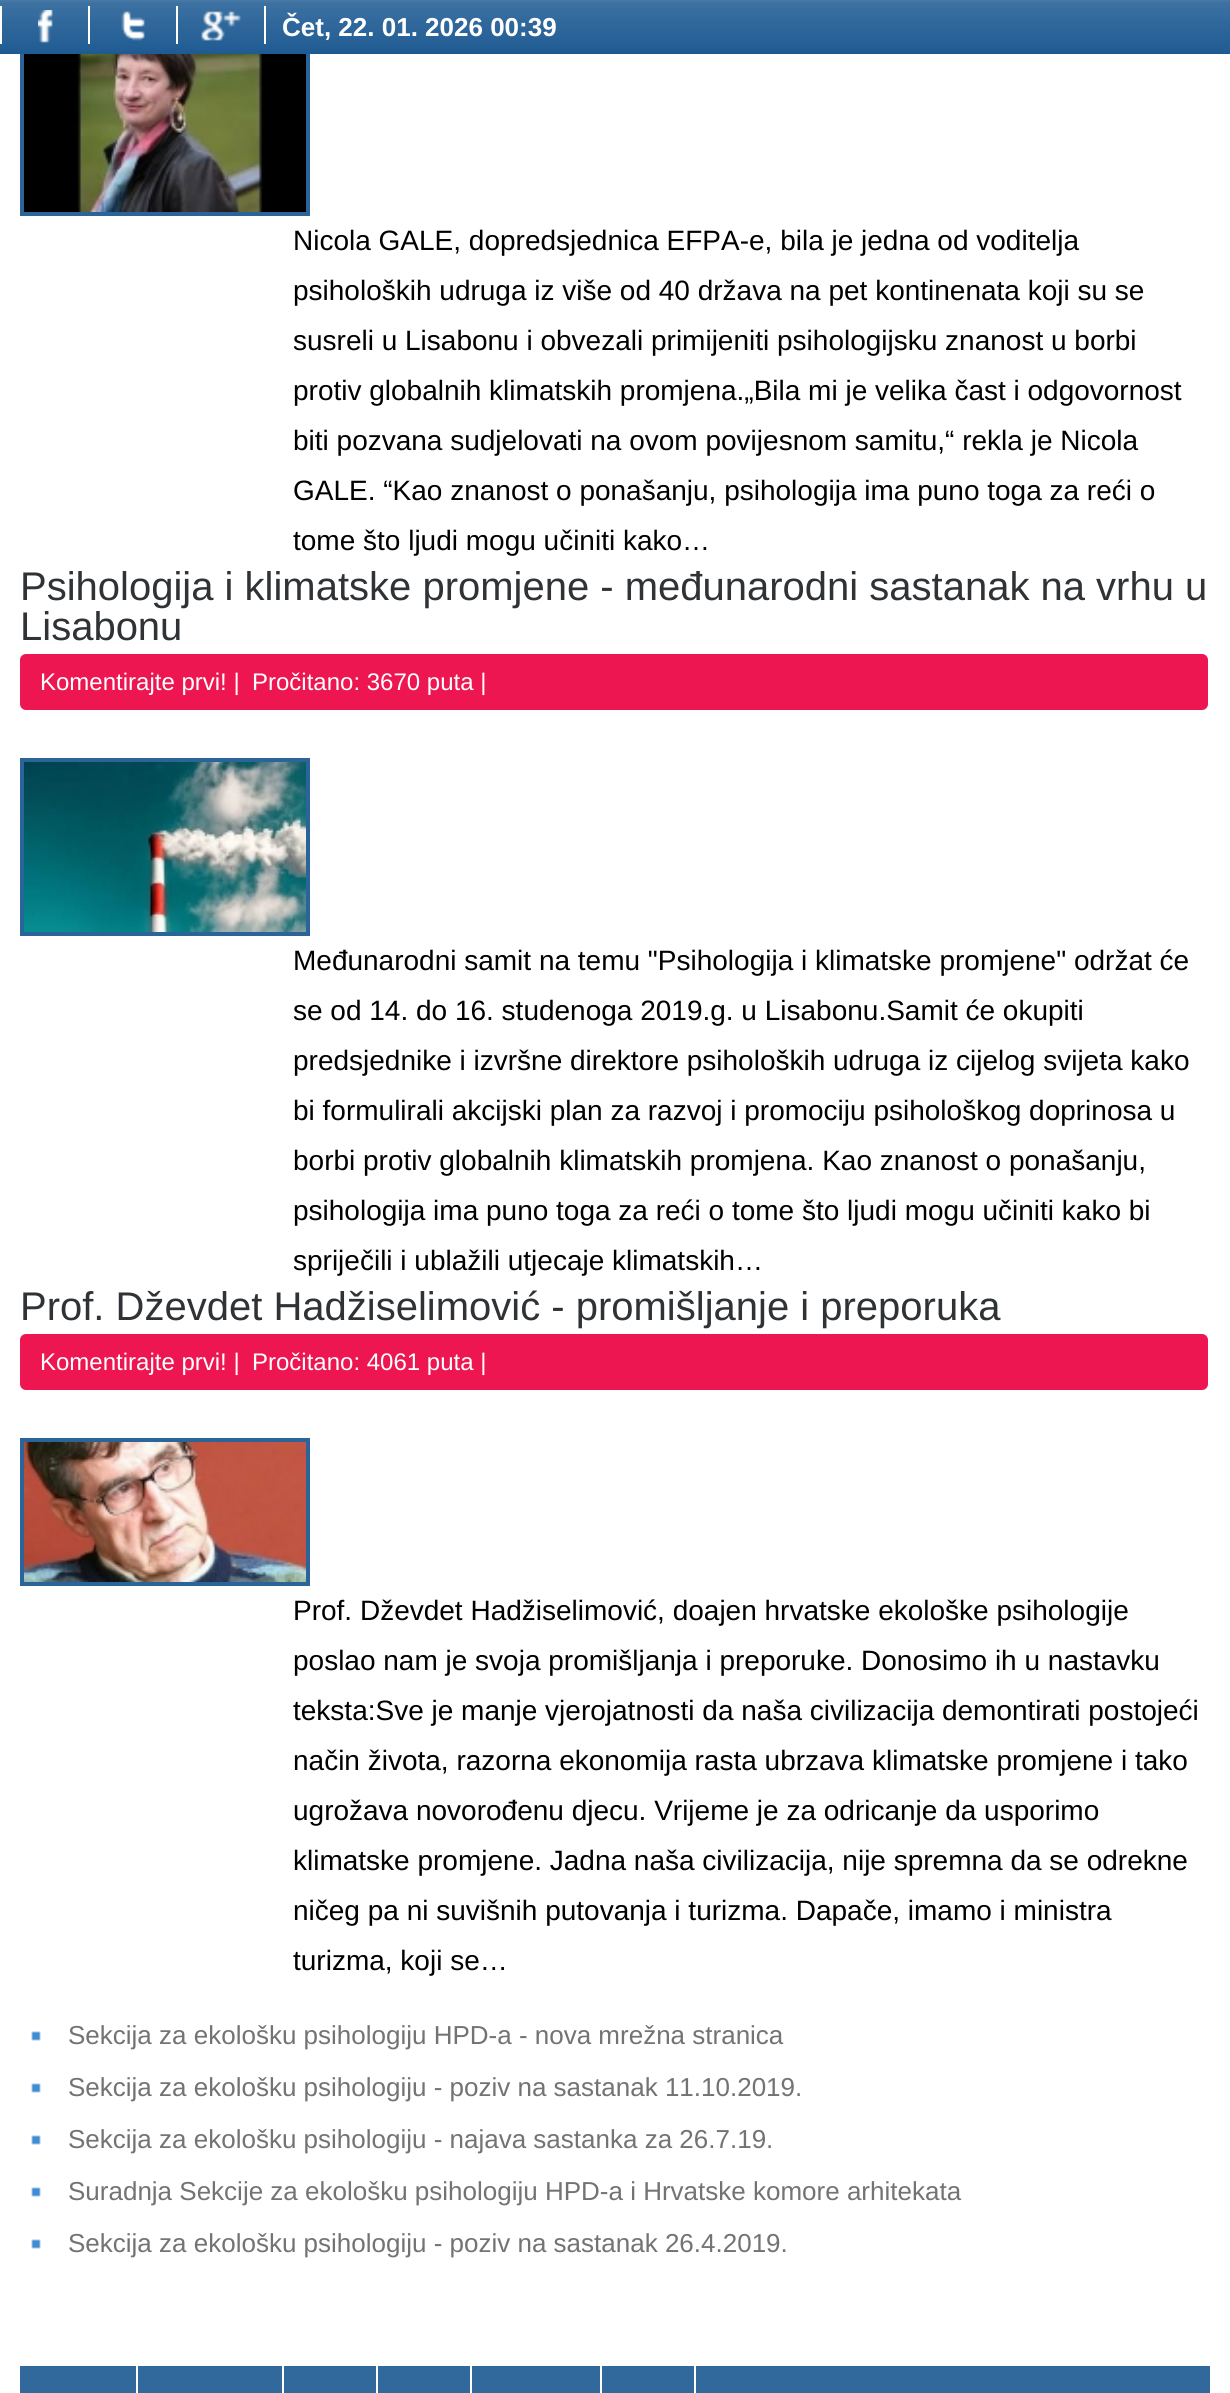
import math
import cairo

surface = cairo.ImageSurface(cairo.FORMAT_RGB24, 1230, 2393)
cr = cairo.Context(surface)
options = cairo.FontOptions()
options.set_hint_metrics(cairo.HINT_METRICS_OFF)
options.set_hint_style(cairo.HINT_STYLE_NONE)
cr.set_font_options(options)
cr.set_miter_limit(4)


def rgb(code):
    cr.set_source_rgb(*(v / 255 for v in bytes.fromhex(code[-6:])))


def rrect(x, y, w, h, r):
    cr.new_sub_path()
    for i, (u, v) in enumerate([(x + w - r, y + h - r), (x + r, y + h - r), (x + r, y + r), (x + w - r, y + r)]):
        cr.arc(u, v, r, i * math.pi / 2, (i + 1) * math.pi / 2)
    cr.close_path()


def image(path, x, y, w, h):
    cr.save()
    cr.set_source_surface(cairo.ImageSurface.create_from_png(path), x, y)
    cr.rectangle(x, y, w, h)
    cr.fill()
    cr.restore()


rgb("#ffffff")
cr.paint()
cr.rectangle(22, 18, 286, 196)
rgb("#2b6499")
cr.set_line_width(4)
cr.stroke()
image("img/1.png", 0, 0, 1230, 54)
image("img/2.png", 38, 10, 15, 33)
rgb("#ffffff")
cr.rectangle(0, 6, 2, 38)
cr.fill()
image("img/3.png", 121, 11, 24, 30)
cr.rectangle(88, 6, 2, 38)
cr.fill()
image("img/4.png", 201, 11, 40, 30)
cr.rectangle(264, 6, 2, 38)
cr.fill()
cr.rectangle(176, 6, 2, 38)
cr.fill()
image("img/5.png", 24, 54, 282, 158)
rgb("#ed1651")
rrect(20, 654, 1188, 56, 6)
cr.fill()
cr.rectangle(22, 760, 286, 174)
rgb("#2b6499")
cr.stroke()
image("img/6.png", 24, 762, 282, 170)
rgb("#ed1651")
rrect(20, 1334, 1188, 56, 6)
cr.fill()
cr.rectangle(22, 1440, 286, 144)
rgb("#2b6499")
cr.stroke()
image("img/7.png", 24, 1442, 282, 140)
image("img/8.png", 31, 2031, 10, 10)
image("img/8.png", 31, 2083, 10, 10)
image("img/8.png", 31, 2135, 10, 10)
image("img/8.png", 31, 2187, 10, 10)
image("img/8.png", 31, 2239, 10, 10)
for x, y, w, h, color in [
    (20, 2366, 1190, 27, "#32699c"),
    (136, 2366, 2, 27, "#ffffff"),
    (282, 2366, 2, 27, "#ffffff"),
    (376, 2366, 2, 27, "#ffffff"),
    (470, 2366, 2, 27, "#ffffff"),
    (600, 2366, 2, 27, "#ffffff"),
    (694, 2366, 2, 27, "#ffffff"),
]:
    rgb(color)
    cr.rectangle(x, y, w, h)
    cr.fill()
cr.select_font_face("Liberation Sans", cairo.FONT_SLANT_NORMAL, cairo.FONT_WEIGHT_BOLD)
cr.set_font_size(26)
cr.move_to(282, 36)
cr.show_text("Čet, 22. 01. 2026 00:39")
cr.select_font_face("Liberation Sans")
cr.set_font_size(28)
rgb("#000000")
for x, y, s in [
    (293, 250, "Nicola GALE, dopredsjednica EFPA-e, bila je jedna od voditelja"),
    (293, 300, "psiholoških udruga iz više od 40 država na pet kontinenata koji su se"),
    (293, 350, "susreli u Lisabonu i obvezali primijeniti psihologijsku znanost u borbi"),
    (293, 400, "protiv globalnih klimatskih promjena.„Bila mi je velika čast i odgovornost"),
    (293, 450, "biti pozvana sudjelovati na ovom povijesnom samitu,“ rekla je Nicola"),
    (293, 500, "GALE. “Kao znanost o ponašanju, psihologija ima puno toga za reći o"),
    (293, 550, "tome što ljudi mogu učiniti kako…"),
]:
    cr.move_to(x, y)
    cr.show_text(s)
cr.set_font_size(40)
rgb("#2f3336")
cr.move_to(20, 600)
cr.show_text("Psihologija i klimatske promjene - međunarodni sastanak na vrhu u")
cr.move_to(20, 640)
cr.show_text("Lisabonu")
cr.set_font_size(24)
rgb("#ffffff")
cr.move_to(40, 690)
cr.show_text("Komentirajte prvi! |")
cr.move_to(252, 690)
cr.show_text("Pročitano: 3670 puta |")
cr.set_font_size(28)
rgb("#000000")
for x, y, s in [
    (293, 970, "Međunarodni samit na temu \"Psihologija i klimatske promjene\" održat će"),
    (293, 1020, "se od 14. do 16. studenoga 2019.g. u Lisabonu.Samit će okupiti"),
    (293, 1070, "predsjednike i izvršne direktore psiholoških udruga iz cijelog svijeta kako"),
    (293, 1120, "bi formulirali akcijski plan za razvoj i promociju psihološkog doprinosa u"),
    (293, 1170, "borbi protiv globalnih klimatskih promjena. Kao znanost o ponašanju,"),
    (293, 1220, "psihologija ima puno toga za reći o tome što ljudi mogu učiniti kako bi"),
    (293, 1270, "spriječili i ublažili utjecaje klimatskih…"),
]:
    cr.move_to(x, y)
    cr.show_text(s)
cr.set_font_size(40)
rgb("#2f3336")
cr.move_to(20, 1320)
cr.show_text("Prof. Dževdet Hadžiselimović - promišljanje i preporuka")
cr.set_font_size(24)
rgb("#ffffff")
cr.move_to(40, 1370)
cr.show_text("Komentirajte prvi! |")
cr.move_to(252, 1370)
cr.show_text("Pročitano: 4061 puta |")
cr.set_font_size(28)
rgb("#000000")
for x, y, s in [
    (293, 1620, "Prof. Dževdet Hadžiselimović, doajen hrvatske ekološke psihologije"),
    (293, 1670, "poslao nam je svoja promišljanja i preporuke. Donosimo ih u nastavku"),
    (293, 1720, "teksta:Sve je manje vjerojatnosti da naša civilizacija demontirati postojeći"),
    (293, 1770, "način života, razorna ekonomija rasta ubrzava klimatske promjene i tako"),
    (293, 1820, "ugrožava novorođenu djecu. Vrijeme je za odricanje da usporimo"),
    (293, 1870, "klimatske promjene. Jadna naša civilizacija, nije spremna da se odrekne"),
    (293, 1920, "ničeg pa ni suvišnih putovanja i turizma. Dapače, imamo i ministra"),
    (293, 1970, "turizma, koji se…"),
]:
    cr.move_to(x, y)
    cr.show_text(s)
cr.set_font_size(26)
rgb("#737373")
for x, y, s in [
    (68, 2044, "Sekcija za ekološku psihologiju HPD-a - nova mrežna stranica"),
    (68, 2096, "Sekcija za ekološku psihologiju - poziv na sastanak 11.10.2019."),
    (68, 2148, "Sekcija za ekološku psihologiju - najava sastanka za 26.7.19."),
    (68, 2200, "Suradnja Sekcije za ekološku psihologiju HPD-a i Hrvatske komore arhitekata"),
    (68, 2252, "Sekcija za ekološku psihologiju - poziv na sastanak 26.4.2019."),
]:
    cr.move_to(x, y)
    cr.show_text(s)
surface.write_to_png("page.png")
